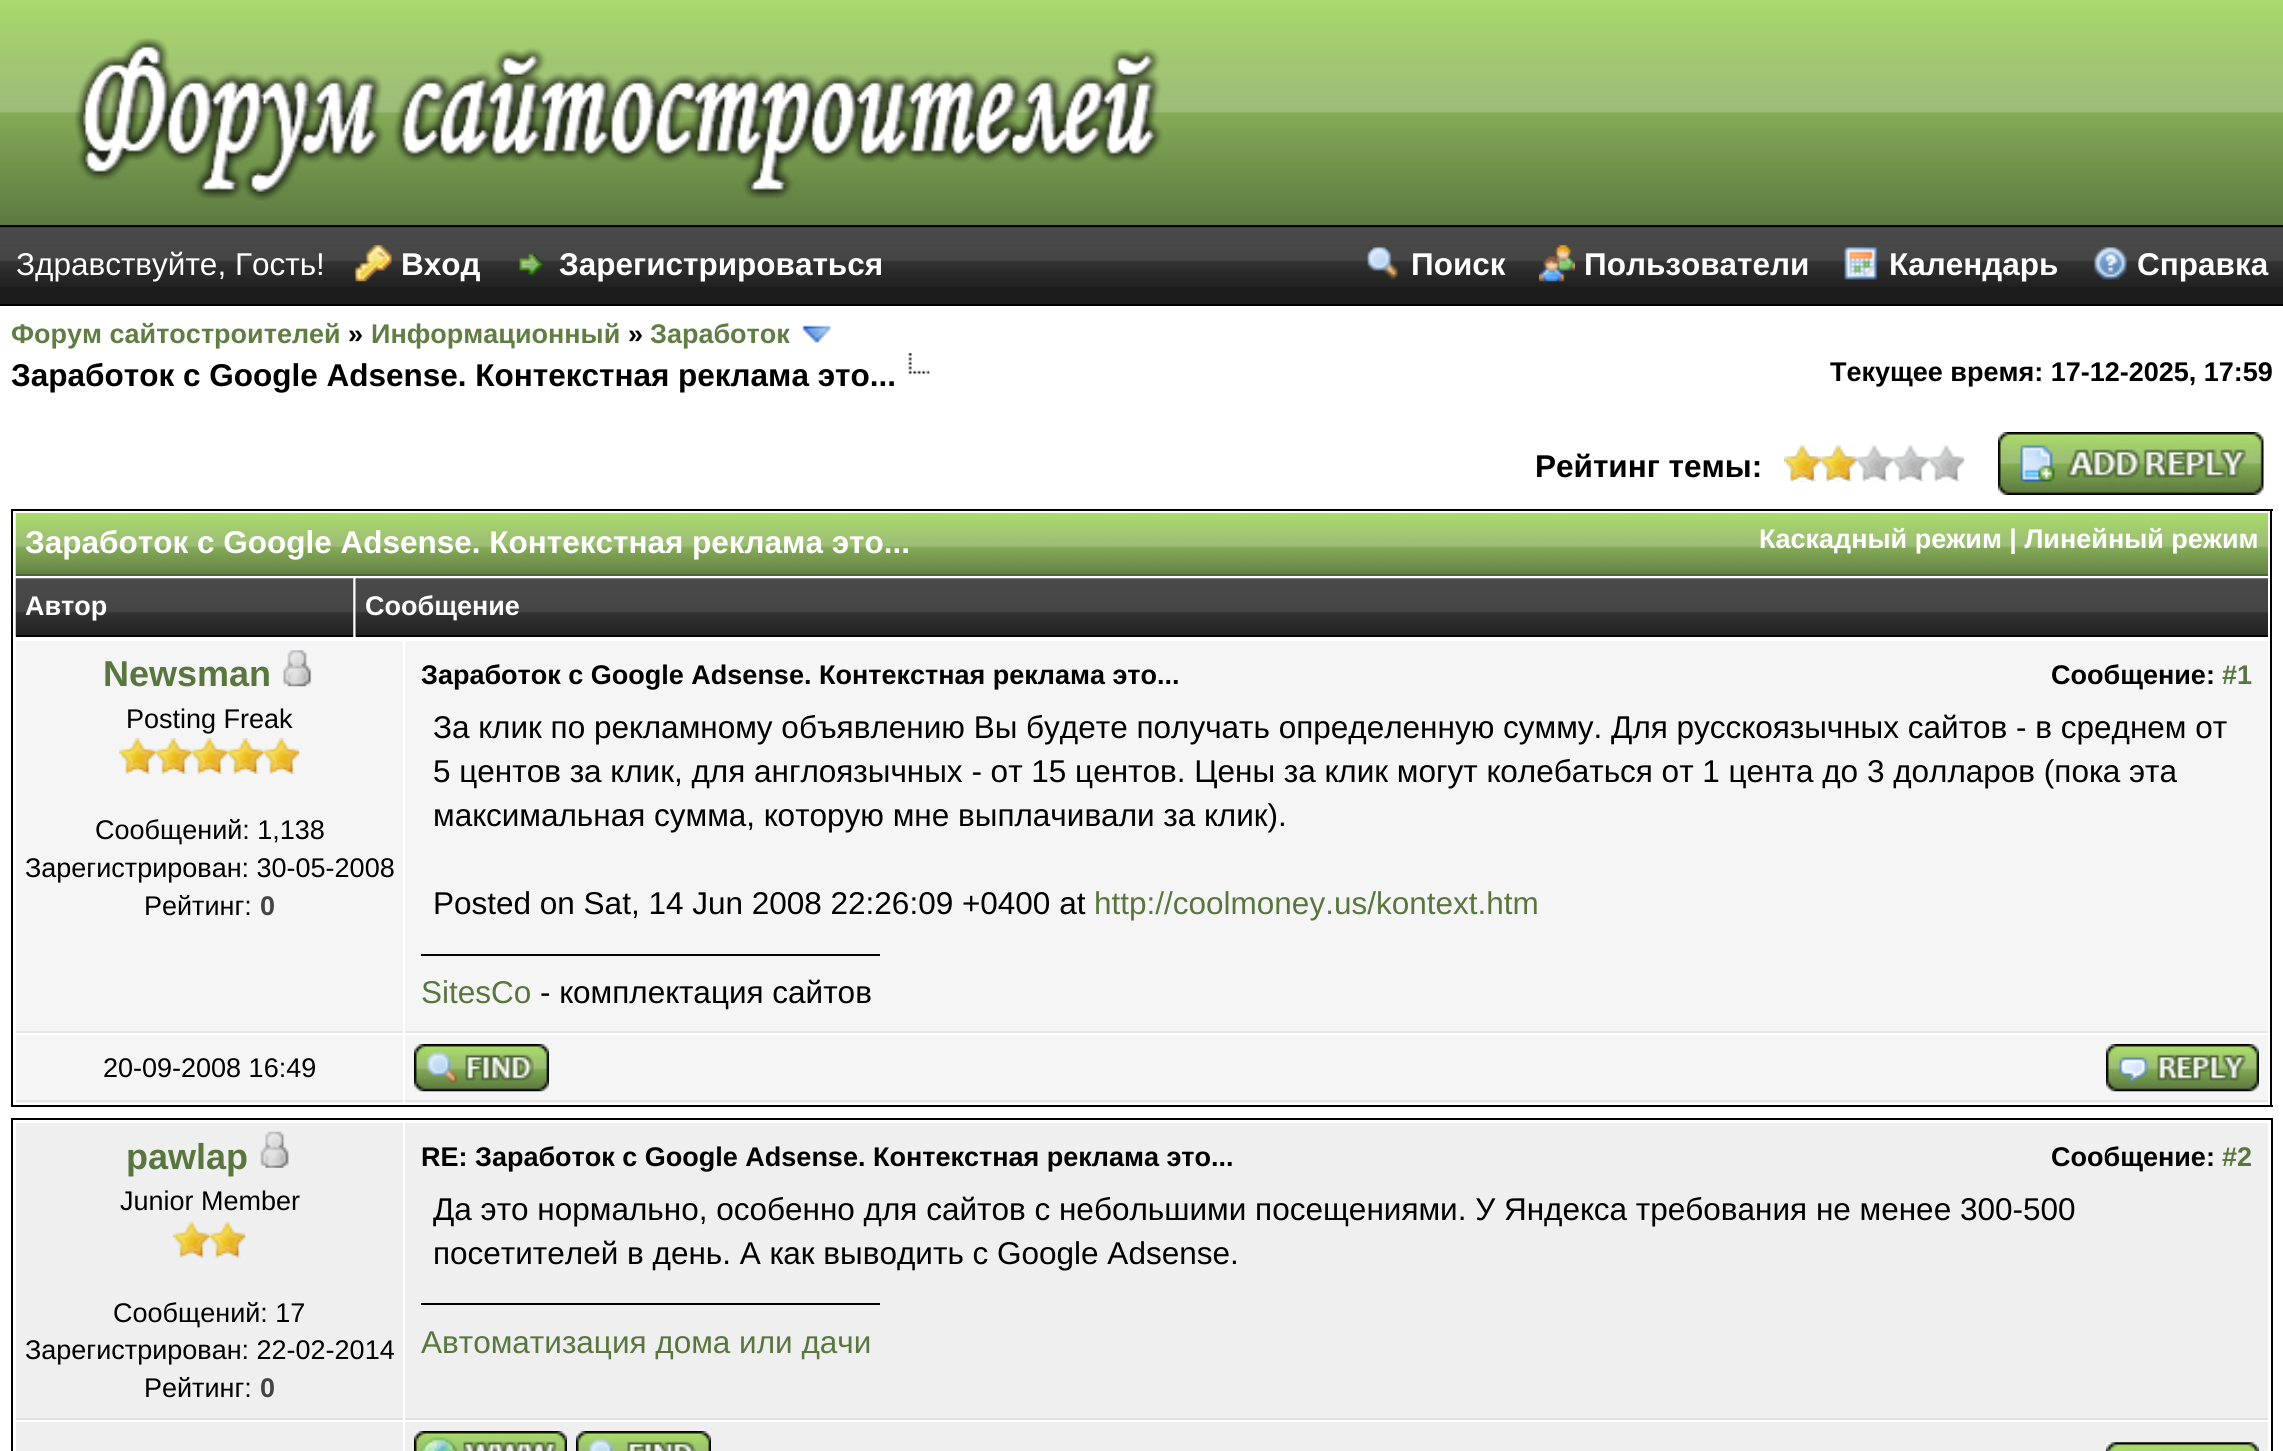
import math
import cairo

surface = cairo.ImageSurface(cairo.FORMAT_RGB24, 2283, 1451)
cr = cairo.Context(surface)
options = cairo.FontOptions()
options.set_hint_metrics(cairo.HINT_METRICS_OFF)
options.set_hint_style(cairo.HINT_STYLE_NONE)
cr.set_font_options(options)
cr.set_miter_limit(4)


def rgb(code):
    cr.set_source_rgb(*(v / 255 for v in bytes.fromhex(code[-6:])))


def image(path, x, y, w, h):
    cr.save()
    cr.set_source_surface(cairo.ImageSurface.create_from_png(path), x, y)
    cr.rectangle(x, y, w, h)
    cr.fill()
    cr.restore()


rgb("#ffffff")
cr.paint()
image("img/1.png", 0, 0, 2283, 225)
rgb("#000000")
cr.rectangle(0, 225, 2283, 2)
cr.fill()
image("img/2.png", 74, 38, 1089, 163)
rgb("#1b1c1b")
cr.rectangle(0, 227, 2283, 77)
cr.fill()
image("img/3.png", 0, 227, 2283, 60)
rgb("#000000")
cr.rectangle(0, 304, 2283, 2)
cr.fill()
image("img/4.png", 355, 245, 37, 37)
image("img/5.png", 519, 253, 24, 24)
image("img/6.png", 1367, 247, 31, 33)
image("img/7.png", 1539, 245, 36, 37)
image("img/8.png", 1844, 247, 34, 33)
image("img/9.png", 2094, 247, 33, 33)
image("img/10.png", 802, 325, 29, 18)
image("img/11.png", 908, 353, 22, 22)
image("img/12.png", 1784, 445, 181, 37)
image("img/13.png", 1784, 445, 73, 37)
image("img/14.png", 1998, 432, 266, 63)
for x, y, w, h, color in [
    (11, 509, 2262, 2, "#000000"),
    (2270, 509, 2, 598, "#000000"),
    (11, 509, 2, 130, "#000000"),
]:
    rgb(color)
    cr.rectangle(x, y, w, h)
    cr.fill()
image("img/15.png", 15, 513, 2253, 63)
rgb("#4e6533")
cr.rectangle(16, 574, 2252, 2)
cr.fill()
image("img/16.png", 15, 578, 339, 59)
rgb("#000000")
cr.rectangle(16, 635, 337, 2)
cr.fill()
image("img/17.png", 355, 578, 1913, 59)
for x, y, w, h, color in [
    (356, 635, 1912, 2, "#000000"),
    (11, 1105, 2262, 2, "#000000"),
    (11, 639, 2, 468, "#000000"),
    (16, 641, 387, 390, "#f5f5f5"),
    (16, 1031, 387, 2, "#e6e6e6"),
]:
    rgb(color)
    cr.rectangle(x, y, w, h)
    cr.fill()
image("img/18.png", 283, 650, 29, 37)
image("img/19.png", 119, 738, 37, 36)
image("img/20.png", 155, 738, 37, 36)
image("img/20.png", 191, 738, 37, 36)
image("img/20.png", 227, 738, 37, 36)
image("img/21.png", 263, 738, 37, 36)
for x, y, w, h, color in [
    (405, 641, 1863, 390, "#f5f5f5"),
    (405, 1031, 1863, 2, "#e6e6e6"),
    (421, 954, 459, 2, "#000000"),
    (16, 1035, 387, 68, "#f5f5f5"),
    (16, 1100, 387, 2, "#e6e6e6"),
    (405, 1035, 1863, 68, "#f5f5f5"),
    (405, 1100, 1863, 2, "#e6e6e6"),
]:
    rgb(color)
    cr.rectangle(x, y, w, h)
    cr.fill()
image("img/22.png", 414, 1044, 135, 48)
image("img/23.png", 2106, 1044, 153, 48)
cr.rectangle(12, 1119, 2260, 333)
rgb("#000000")
cr.stroke()
rgb("#efefef")
cr.rectangle(16, 1123, 387, 295)
cr.fill()
rgb("#e0e0e0")
cr.rectangle(16, 1418, 387, 2)
cr.fill()
image("img/24.png", 260, 1131, 29, 37)
image("img/25.png", 173, 1221, 37, 37)
image("img/26.png", 209, 1221, 37, 37)
for x, y, w, h, color in [
    (405, 1123, 1863, 295, "#efefef"),
    (405, 1418, 1863, 2, "#e0e0e0"),
    (421, 1303, 459, 2, "#000000"),
    (16, 1422, 387, 29, "#efefef"),
    (405, 1422, 1863, 29, "#efefef"),
]:
    rgb(color)
    cr.rectangle(x, y, w, h)
    cr.fill()
image("img/27.png", 414, 1431, 153, 20)
image("img/28.png", 576, 1431, 135, 20)
image("img/29.png", 2106, 1442, 153, 9)
cr.select_font_face("Liberation Sans")
cr.set_font_size(31.5)
rgb("#ffffff")
cr.move_to(16, 275)
cr.show_text("Здравствуйте, Гость!")
cr.select_font_face("Liberation Sans", cairo.FONT_SLANT_NORMAL, cairo.FONT_WEIGHT_BOLD)
for x, y, s in [
    (401, 275, "Вход"),
    (559, 275, "Зарегистрироваться"),
    (1411, 275, "Поиск"),
    (1584, 275, "Пользователи"),
    (1889, 275, "Календарь"),
    (2137, 275, "Справка"),
]:
    cr.move_to(x, y)
    cr.show_text(s)
cr.set_font_size(27)
rgb("#607d43")
cr.move_to(11, 343)
cr.show_text("Форум сайтостроителей")
rgb("#000000")
cr.move_to(348, 343)
cr.show_text("»")
rgb("#607d43")
cr.move_to(371, 343)
cr.show_text("Информационный")
rgb("#000000")
cr.move_to(628, 343)
cr.show_text("»")
rgb("#607d43")
cr.move_to(650, 343)
cr.show_text("Заработок")
cr.set_font_size(31.5)
rgb("#000000")
cr.move_to(11, 386)
cr.show_text("Заработок с Google Adsense. Контекстная реклама это...")
cr.set_font_size(27)
cr.move_to(1830, 381)
cr.show_text("Текущее время: 17-12-2025, 17:59")
cr.set_font_size(31.5)
cr.move_to(1535, 477)
cr.show_text("Рейтинг темы:")
rgb("#ffffff")
cr.move_to(25, 553)
cr.show_text("Заработок с Google Adsense. Контекстная реклама это...")
cr.set_font_size(27)
for x, y, s in [
    (1759, 548, "Каскадный режим | Линейный режим"),
    (25, 615, "Автор"),
    (365, 615, "Сообщение"),
]:
    cr.move_to(x, y)
    cr.show_text(s)
cr.set_font_size(36)
rgb("#5a763f")
cr.move_to(103, 686)
cr.show_text("Newsman")
cr.select_font_face("Liberation Sans")
cr.set_font_size(27)
rgb("#000000")
for x, y, s in [
    (126, 728, "Posting Freak"),
    (95, 839, "Сообщений: 1,138"),
    (25, 877, "Зарегистрирован: 30-05-2008"),
    (144, 915, "Рейтинг:"),
]:
    cr.move_to(x, y)
    cr.show_text(s)
cr.select_font_face("Liberation Sans", cairo.FONT_SLANT_NORMAL, cairo.FONT_WEIGHT_BOLD)
rgb("#444444")
cr.move_to(260, 915)
cr.show_text("0")
rgb("#000000")
cr.move_to(421, 684)
cr.show_text("Заработок с Google Adsense. Контекстная реклама это...")
cr.move_to(2051, 684)
cr.show_text("Сообщение:")
rgb("#5a763f")
cr.move_to(2222, 684)
cr.show_text("#1")
cr.select_font_face("Liberation Sans")
cr.set_font_size(31.5)
rgb("#000000")
for x, y, s in [
    (433, 738, "За клик по рекламному объявлению Вы будете получать определенную сумму. Для русскоязычных сайтов - в среднем от"),
    (433, 782, "5 центов за клик, для англоязычных - от 15 центов. Цены за клик могут колебаться от 1 цента до 3 долларов (пока эта"),
    (433, 826, "максимальная сумма, которую мне выплачивали за клик)."),
    (433, 914, "Posted on Sat, 14 Jun 2008 22:26:09 +0400 at"),
]:
    cr.move_to(x, y)
    cr.show_text(s)
rgb("#5a763f")
cr.move_to(1094, 914)
cr.show_text("http://coolmoney.us/kontext.htm")
cr.move_to(421, 1003)
cr.show_text("SitesCo")
rgb("#000000")
cr.move_to(540, 1003)
cr.show_text("- комплектация сайтов")
cr.set_font_size(27)
cr.move_to(103, 1077)
cr.show_text("20-09-2008 16:49")
cr.select_font_face("Liberation Sans", cairo.FONT_SLANT_NORMAL, cairo.FONT_WEIGHT_BOLD)
cr.set_font_size(36)
rgb("#5a763f")
cr.move_to(126, 1169)
cr.show_text("pawlap")
cr.select_font_face("Liberation Sans")
cr.set_font_size(27)
rgb("#000000")
for x, y, s in [
    (120, 1210, "Junior Member"),
    (113, 1322, "Сообщений: 17"),
    (25, 1359, "Зарегистрирован: 22-02-2014"),
    (144, 1397, "Рейтинг:"),
]:
    cr.move_to(x, y)
    cr.show_text(s)
cr.select_font_face("Liberation Sans", cairo.FONT_SLANT_NORMAL, cairo.FONT_WEIGHT_BOLD)
rgb("#444444")
cr.move_to(260, 1397)
cr.show_text("0")
rgb("#000000")
cr.move_to(421, 1166)
cr.show_text("RE: Заработок с Google Adsense. Контекстная реклама это...")
cr.move_to(2051, 1166)
cr.show_text("Сообщение:")
rgb("#5a763f")
cr.move_to(2222, 1166)
cr.show_text("#2")
cr.select_font_face("Liberation Sans")
cr.set_font_size(31.5)
rgb("#000000")
cr.move_to(433, 1220)
cr.show_text("Да это нормально, особенно для сайтов с небольшими посещениями. У Яндекса требования не менее 300-500")
cr.move_to(433, 1264)
cr.show_text("посетителей в день. А как выводить с Google Adsense.")
rgb("#5a763f")
cr.move_to(421, 1353)
cr.show_text("Автоматизация дома или дачи")
surface.write_to_png("page.png")
